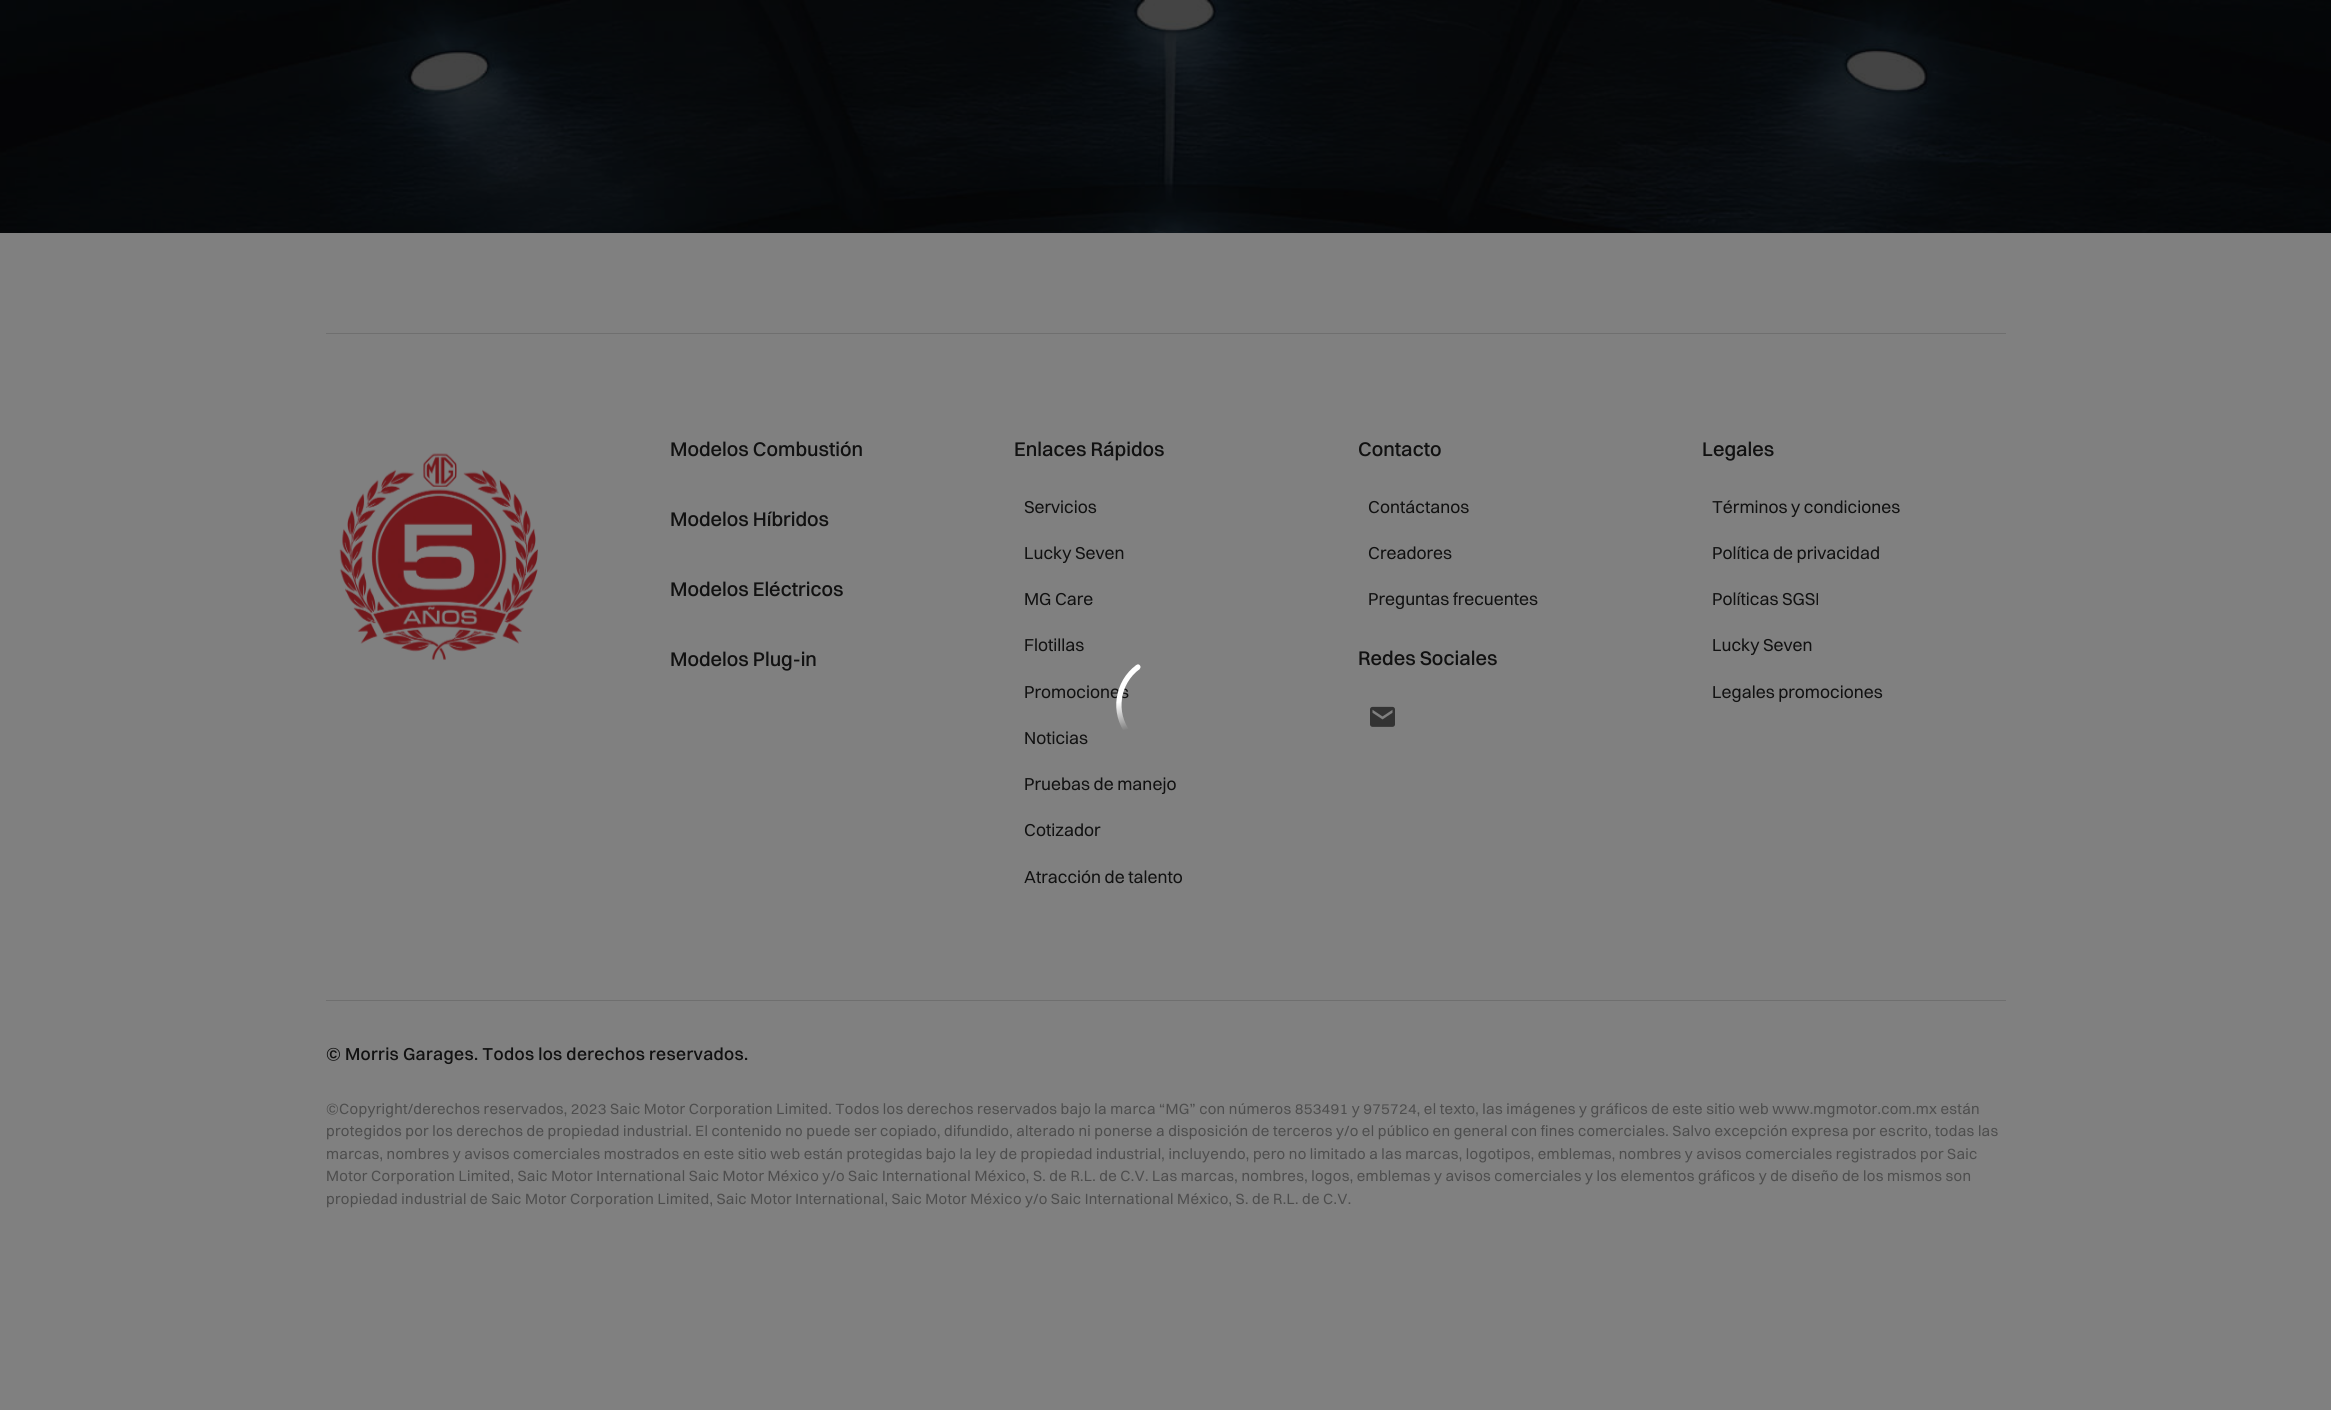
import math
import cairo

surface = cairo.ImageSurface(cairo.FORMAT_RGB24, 2331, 1410)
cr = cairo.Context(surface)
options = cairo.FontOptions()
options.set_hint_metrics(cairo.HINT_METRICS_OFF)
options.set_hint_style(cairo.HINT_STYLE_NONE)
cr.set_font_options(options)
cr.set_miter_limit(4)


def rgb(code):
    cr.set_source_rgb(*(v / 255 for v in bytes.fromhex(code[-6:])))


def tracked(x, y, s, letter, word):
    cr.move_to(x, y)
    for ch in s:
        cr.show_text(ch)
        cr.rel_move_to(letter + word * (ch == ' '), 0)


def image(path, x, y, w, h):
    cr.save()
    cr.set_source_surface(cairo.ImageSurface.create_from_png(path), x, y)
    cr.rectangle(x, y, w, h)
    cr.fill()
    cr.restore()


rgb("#ffffff")
cr.paint()
image("img/1.png", 0, 0, 2331, 233)
for x, y, w, h, color in [
    (0, 233, 2331, 1177, "#808080"),
    (326, 333, 1680, 1, "#6f6f6f"),
    (326, 1000, 1680, 1, "#6f6f6f"),
]:
    rgb(color)
    cr.rectangle(x, y, w, h)
    cr.fill()
image("img/2.png", 339, 453, 199, 207)
image("img/3.png", 1370, 706, 25, 21)
cr.select_font_face("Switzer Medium")
cr.set_font_size(20)
rgb("#111111")
for x, y, s in [
    (670, 456, "Modelos Combustión"),
    (670, 526, "Modelos Híbridos"),
    (670, 596, "Modelos Eléctricos"),
    (670, 666, "Modelos Plug-in"),
    (1014, 456, "Enlaces Rápidos"),
]:
    cr.move_to(x, y)
    cr.show_text(s)
cr.select_font_face("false")
cr.set_font_size(17.5)
for x, y, s in [
    (1024, 513, "Servicios"),
    (1024, 559, "Lucky Seven"),
    (1024, 605, "MG Care"),
    (1024, 651, "Flotillas"),
    (1024, 698, "Promociones"),
    (1024, 744, "Noticias"),
    (1024, 790, "Pruebas de manejo"),
    (1024, 836, "Cotizador"),
    (1024, 883, "Atracción de talento"),
]:
    cr.move_to(x, y)
    cr.show_text(s)
cr.select_font_face("Switzer Medium")
cr.set_font_size(20)
cr.move_to(1358, 456)
cr.show_text("Contacto")
cr.select_font_face("false")
cr.set_font_size(17.5)
for x, y, s in [
    (1368, 513, "Contáctanos"),
    (1368, 559, "Creadores"),
    (1368, 605, "Preguntas frecuentes"),
]:
    cr.move_to(x, y)
    cr.show_text(s)
cr.select_font_face("Switzer Medium")
cr.set_font_size(20)
cr.move_to(1358, 665)
cr.show_text("Redes Sociales")
cr.move_to(1702, 456)
cr.show_text("Legales")
cr.select_font_face("false")
cr.set_font_size(17.5)
for x, y, s in [
    (1712, 513, "Términos y condiciones"),
    (1712, 559, "Política de privacidad"),
    (1712, 605, "Políticas SGSI"),
    (1712, 651, "Lucky Seven"),
    (1712, 698, "Legales promociones"),
]:
    cr.move_to(x, y)
    cr.show_text(s)
cr.select_font_face("Switzer Medium")
tracked(326, 1060, "© Morris Garages. Todos los derechos reservados.", 0.35, 0)
cr.select_font_face("false")
cr.set_font_size(15)
rgb("#4d4d4d")
for x, y, s in [
    (326, 1114, "©Copyright/derechos reservados, 2023 Saic Motor Corporation Limited. Todos los derechos reservados bajo la marca “MG” con números 853491 y 975724, el texto, las imágenes y gráficos de este sitio web www.mgmotor.com.mx están"),
    (326, 1136, "protegidos por los derechos de propiedad industrial. El contenido no puede ser copiado, difundido, alterado ni ponerse a disposición de terceros y/o el público en general con fines comerciales. Salvo excepción expresa por escrito, todas las"),
    (326, 1159, "marcas, nombres y avisos comerciales mostrados en este sitio web están protegidas bajo la ley de propiedad industrial, incluyendo, pero no limitado a las marcas, logotipos, emblemas, nombres y avisos comerciales registrados por Saic"),
    (326, 1181, "Motor Corporation Limited, Saic Motor International Saic Motor México y/o Saic International México, S. de R.L. de C.V. Las marcas, nombres, logos, emblemas y avisos comerciales y los elementos gráficos y de diseño de los mismos son"),
    (326, 1204, "propiedad industrial de Saic Motor Corporation Limited, Saic Motor International, Saic Motor México y/o Saic International México, S. de R.L. de C.V."),
]:
    tracked(x, y, s, 0.3, 0)
cr.new_path()
cr.move_to(1138, 667)
cr.curve_to(1117, 682.5, 1112.5, 712.5, 1128.5, 733.5)
gradient = cairo.LinearGradient(1126, 730, 1119, 702)
gradient.add_color_stop_rgba(0, 1, 1, 1, 0)
gradient.add_color_stop_rgba(0.63, 1, 1, 1, 0.63)
gradient.add_color_stop_rgba(1, 1, 1, 1, 1)
cr.set_source(gradient)
cr.set_line_width(5.3)
cr.stroke()
rgb("#ffffff")
cr.set_fill_rule(cairo.FILL_RULE_EVEN_ODD)
cr.new_path()
cr.move_to(1136, 668.5)
cr.curve_to(1134, 666, 1138, 662.5, 1140, 665.5)
cr.curve_to(1142, 668, 1138, 671.5, 1136, 668.5)
cr.close_path()
cr.fill()
surface.write_to_png("page.png")
